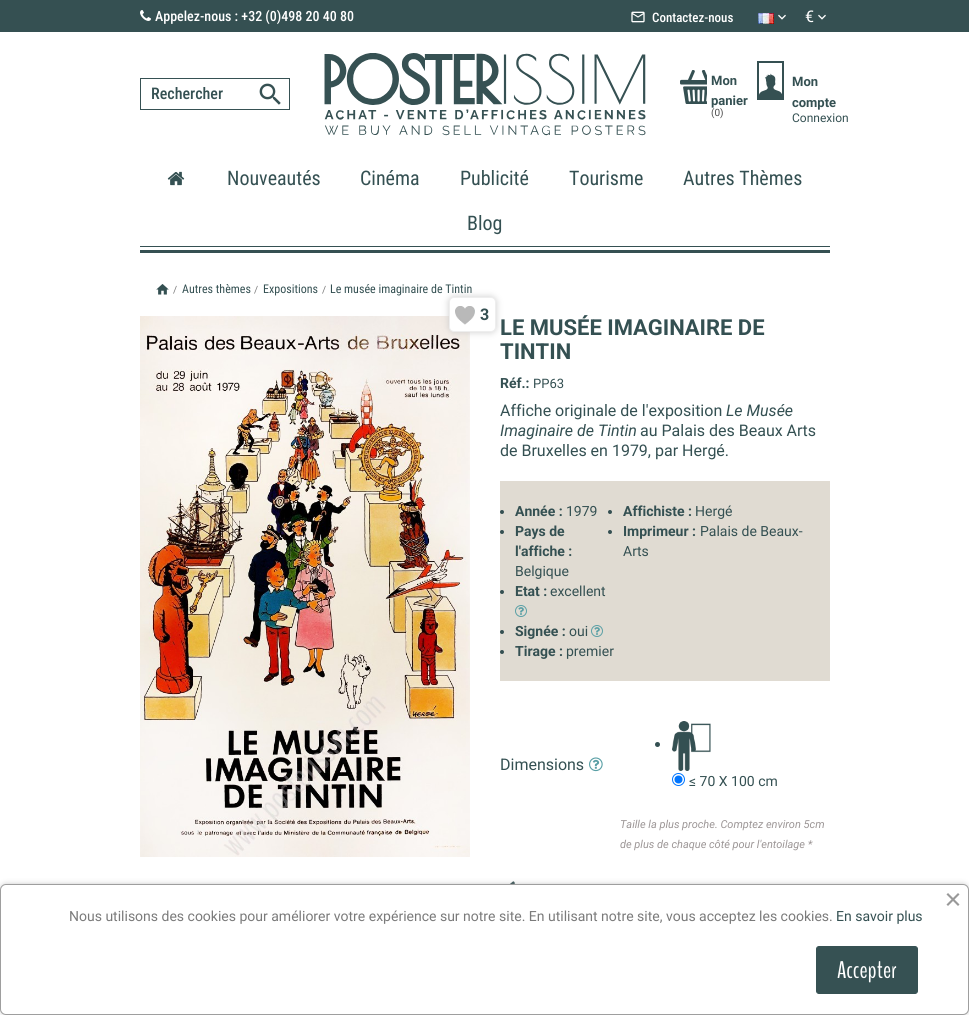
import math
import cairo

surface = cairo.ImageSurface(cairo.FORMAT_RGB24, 969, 1015)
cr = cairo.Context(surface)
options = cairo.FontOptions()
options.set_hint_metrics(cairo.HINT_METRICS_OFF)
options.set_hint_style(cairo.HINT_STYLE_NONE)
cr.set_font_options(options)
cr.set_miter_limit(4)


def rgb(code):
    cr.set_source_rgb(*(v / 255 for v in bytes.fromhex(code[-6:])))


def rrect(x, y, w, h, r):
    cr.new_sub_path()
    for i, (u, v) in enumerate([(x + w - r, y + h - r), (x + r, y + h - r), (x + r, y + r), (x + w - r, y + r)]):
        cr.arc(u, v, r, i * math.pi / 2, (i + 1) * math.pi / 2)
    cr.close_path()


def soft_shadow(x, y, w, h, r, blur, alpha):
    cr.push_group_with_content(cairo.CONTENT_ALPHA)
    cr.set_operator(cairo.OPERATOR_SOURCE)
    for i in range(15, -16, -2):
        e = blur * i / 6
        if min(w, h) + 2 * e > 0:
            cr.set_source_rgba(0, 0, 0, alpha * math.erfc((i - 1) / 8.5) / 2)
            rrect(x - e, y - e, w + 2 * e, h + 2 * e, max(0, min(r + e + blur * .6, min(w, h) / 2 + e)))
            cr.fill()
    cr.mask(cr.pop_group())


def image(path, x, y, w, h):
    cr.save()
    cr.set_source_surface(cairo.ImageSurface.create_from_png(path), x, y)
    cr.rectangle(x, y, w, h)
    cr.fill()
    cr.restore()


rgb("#ffffff")
cr.paint()
rgb("#355052")
cr.rectangle(0, 0, 969, 32)
cr.fill()
image("img/1.png", 140, 10, 11, 11)
image("img/2.png", 631, 11, 14, 12)
image("img/3.png", 758, 13, 16, 11)
image("img/4.png", 778, 14, 8, 6)
image("img/4.png", 818, 14, 8, 6)
cr.rectangle(140.5, 78.5, 149, 31)
rgb("#365153")
cr.set_line_width(1)
cr.stroke()
image("img/5.png", 259, 83, 22, 22)
image("img/6.png", 324, 53, 322, 83)
image("img/7.png", 680, 70, 27, 34)
image("img/8.png", 757, 61, 27, 39)
rgb("#355052")
cr.rectangle(140, 250, 690, 3)
cr.fill()
image("img/9.png", 167, 171, 18, 15)
cr.rectangle(140, 246, 690, 1)
cr.fill()
image("img/10.png", 156, 284, 13, 11)
image("img/12.png", 140, 316, 330, 541)
rgb("#cccccc")
soft_shadow(449, 297, 47, 35, 5, 3.5, 1)
rgb("#ffffff")
rrect(449.5, 297.5, 46, 34, 4.5)
cr.fill_preserve()
rgb("#eeeeee")
cr.stroke()
image("img/11.png", 455, 306, 20, 19)
rgb("#e0dbd2")
cr.rectangle(500, 481, 330, 200)
cr.fill()
rgb("#355052")
cr.arc(502, 512, 2, 0, 2 * math.pi)
cr.fill()
cr.arc(502, 532, 2, 0, 2 * math.pi)
cr.fill()
cr.arc(502, 592, 2, 0, 2 * math.pi)
cr.fill()
image("img/13.png", 515, 605, 12, 12)
cr.arc(610, 512, 2, 0, 2 * math.pi)
cr.fill()
cr.arc(610, 532, 2, 0, 2 * math.pi)
cr.fill()
cr.arc(502, 632, 2, 0, 2 * math.pi)
cr.fill()
image("img/13.png", 591, 625, 12, 12)
cr.arc(502, 652, 2, 0, 2 * math.pi)
cr.fill()
image("img/14.png", 589, 757, 14, 15)
rgb("#345052")
cr.arc(657.5, 744.5, 2.5, 0, 2 * math.pi)
cr.fill()
image("img/15.png", 672, 721, 39, 50)
cr.arc(678.5, 779.5, 6, 0, 2 * math.pi)
rgb("#0075ff")
cr.stroke()
cr.arc(678.5, 779.5, 4, 0, 2 * math.pi)
cr.fill()
image("img/16.png", 510, 881, 5, 3)
rgb("#9e9e9e")
soft_shadow(2, 886, 965, 127, 4, 3.5, 1)
rgb("#ffffff")
rrect(0.5, 884.5, 968, 130, 5.5)
cr.fill_preserve()
rgb("#9e9e9e")
cr.stroke()
rgb("#999999")
cr.new_path()
cr.move_to(946.5, 904.5)
cr.line_to(958, 893)
cr.line_to(959.5, 894.5)
cr.line_to(948, 906)
cr.close_path()
cr.fill()
cr.new_path()
cr.move_to(948, 893)
cr.line_to(959.5, 904.5)
cr.line_to(958, 906)
cr.line_to(946.5, 894.5)
cr.close_path()
cr.fill()
rgb("#365153")
rrect(816.5, 946.5, 101, 47, 2.5)
cr.fill_preserve()
cr.stroke()
cr.select_font_face("Roboto Condensed Medium")
cr.set_font_size(14)
rgb("#ffffff")
cr.move_to(155, 21)
cr.show_text("Appelez-nous : +32 (0)498 20 40 80")
cr.set_font_size(13)
cr.move_to(652, 22)
cr.show_text("Contactez-nous")
cr.select_font_face("Roboto")
cr.set_font_size(16)
cr.move_to(805, 22)
cr.show_text("€")
cr.select_font_face("Roboto Condensed Medium")
rgb("#345052")
cr.move_to(151, 99)
cr.show_text("Rechercher")
cr.select_font_face("Roboto", cairo.FONT_SLANT_NORMAL, cairo.FONT_WEIGHT_BOLD)
cr.set_font_size(13)
cr.move_to(711, 85)
cr.show_text("Mon")
cr.move_to(711, 105)
cr.show_text("panier")
cr.select_font_face("Roboto")
cr.set_font_size(10)
rgb("#4d4d4d")
cr.move_to(711, 116)
cr.show_text("(0)")
cr.select_font_face("Roboto", cairo.FONT_SLANT_NORMAL, cairo.FONT_WEIGHT_BOLD)
cr.set_font_size(13)
rgb("#345052")
cr.move_to(792, 86)
cr.show_text("Mon")
cr.move_to(792, 107)
cr.show_text("compte")
cr.select_font_face("Roboto")
cr.set_font_size(12)
cr.move_to(792, 122)
cr.show_text("Connexion")
cr.select_font_face("Roboto Condensed")
cr.set_font_size(20)
for x, y, s in [
    (227, 185, "Nouveautés"),
    (360, 185, "Cinéma"),
    (460, 185, "Publicité"),
    (569, 185, "Tourisme"),
    (683, 185, "Autres Thèmes"),
    (467, 230, "Blog"),
]:
    cr.move_to(x, y)
    cr.show_text(s)
cr.select_font_face("Roboto")
cr.set_font_size(10)
rgb("#7a7a7a")
cr.move_to(173, 293)
cr.show_text("/")
cr.select_font_face("Roboto Condensed")
cr.set_font_size(12)
rgb("#345052")
cr.move_to(182, 293)
cr.show_text("Autres thèmes")
cr.select_font_face("Roboto")
cr.set_font_size(10)
rgb("#7a7a7a")
cr.move_to(254, 293)
cr.show_text("/")
cr.select_font_face("Roboto Condensed")
cr.set_font_size(12)
rgb("#345052")
cr.move_to(263, 293)
cr.show_text("Expositions")
cr.select_font_face("Roboto")
cr.set_font_size(10)
rgb("#7a7a7a")
cr.move_to(322, 293)
cr.show_text("/")
cr.select_font_face("Roboto Condensed")
cr.set_font_size(12)
rgb("#345052")
cr.move_to(330, 293)
cr.show_text("Le musée imaginaire de Tintin")
cr.select_font_face("Roboto", cairo.FONT_SLANT_NORMAL, cairo.FONT_WEIGHT_BOLD)
cr.set_font_size(16)
cr.move_to(480, 320)
cr.show_text("3")
cr.set_font_size(22)
cr.move_to(500, 335)
cr.show_text("LE MUSÉE IMAGINAIRE DE")
cr.move_to(500, 359)
cr.show_text("TINTIN")
cr.set_font_size(14)
cr.move_to(500, 388)
cr.show_text("Réf.:")
cr.select_font_face("Roboto")
cr.set_font_size(13)
cr.move_to(533, 388)
cr.show_text("PP63")
cr.set_font_size(16)
cr.move_to(500, 416)
cr.show_text("Affiche originale de l'exposition")
cr.select_font_face("Roboto", cairo.FONT_SLANT_ITALIC)
cr.move_to(726, 416)
cr.show_text("Le Musée")
cr.move_to(500, 436)
cr.show_text("Imaginaire de Tintin")
cr.select_font_face("Roboto")
cr.move_to(640, 436)
cr.show_text("au Palais des Beaux Arts")
cr.move_to(500, 456)
cr.show_text("de Bruxelles en 1979, par Hergé.")
cr.select_font_face("Roboto", cairo.FONT_SLANT_NORMAL, cairo.FONT_WEIGHT_BOLD)
cr.set_font_size(14)
cr.move_to(515, 516)
cr.show_text("Année :")
cr.select_font_face("Roboto")
cr.move_to(566, 516)
cr.show_text("1979")
cr.select_font_face("Roboto", cairo.FONT_SLANT_NORMAL, cairo.FONT_WEIGHT_BOLD)
cr.move_to(515, 536)
cr.show_text("Pays de")
cr.move_to(515, 556)
cr.show_text("l'affiche :")
cr.select_font_face("Roboto")
cr.move_to(515, 576)
cr.show_text("Belgique")
cr.select_font_face("Roboto", cairo.FONT_SLANT_NORMAL, cairo.FONT_WEIGHT_BOLD)
cr.move_to(515, 596)
cr.show_text("Etat :")
cr.select_font_face("Roboto")
cr.move_to(550, 596)
cr.show_text("excellent")
cr.select_font_face("Roboto", cairo.FONT_SLANT_NORMAL, cairo.FONT_WEIGHT_BOLD)
cr.move_to(623, 516)
cr.show_text("Affichiste :")
cr.select_font_face("Roboto")
cr.move_to(695, 516)
cr.show_text("Hergé")
cr.select_font_face("Roboto", cairo.FONT_SLANT_NORMAL, cairo.FONT_WEIGHT_BOLD)
cr.move_to(623, 536)
cr.show_text("Imprimeur :")
cr.select_font_face("Roboto")
cr.move_to(700, 536)
cr.show_text("Palais de Beaux-")
cr.move_to(623, 556)
cr.show_text("Arts")
cr.select_font_face("Roboto", cairo.FONT_SLANT_NORMAL, cairo.FONT_WEIGHT_BOLD)
cr.move_to(515, 636)
cr.show_text("Signée :")
cr.select_font_face("Roboto")
cr.move_to(569, 636)
cr.show_text("oui")
cr.select_font_face("Roboto", cairo.FONT_SLANT_NORMAL, cairo.FONT_WEIGHT_BOLD)
cr.move_to(515, 656)
cr.show_text("Tirage :")
cr.select_font_face("Roboto")
cr.move_to(566, 656)
cr.show_text("premier")
cr.set_font_size(16)
cr.move_to(500, 770)
cr.show_text("Dimensions")
cr.set_font_size(14)
cr.move_to(689, 786)
cr.show_text("≤ 70 X 100 cm")
cr.select_font_face("Roboto", cairo.FONT_SLANT_ITALIC)
cr.set_font_size(11)
rgb("#9c9696")
cr.move_to(620, 828)
cr.show_text("Taille la plus proche. Comptez environ 5cm")
cr.move_to(620, 848)
cr.show_text("de plus de chaque côté pour l'entoilage *")
cr.select_font_face("Roboto")
cr.set_font_size(14)
rgb("#7a7a7a")
cr.move_to(69, 921)
cr.show_text("Nous utilisons des cookies pour améliorer votre expérience sur notre site. En utilisant notre site, vous acceptez les cookies.")
rgb("#345052")
cr.move_to(836, 921)
cr.show_text("En savoir plus")
cr.select_font_face("BenchNine")
cr.set_font_size(24)
rgb("#ffffff")
cr.move_to(837, 978)
cr.show_text("Accepter")
surface.write_to_png("page.png")
